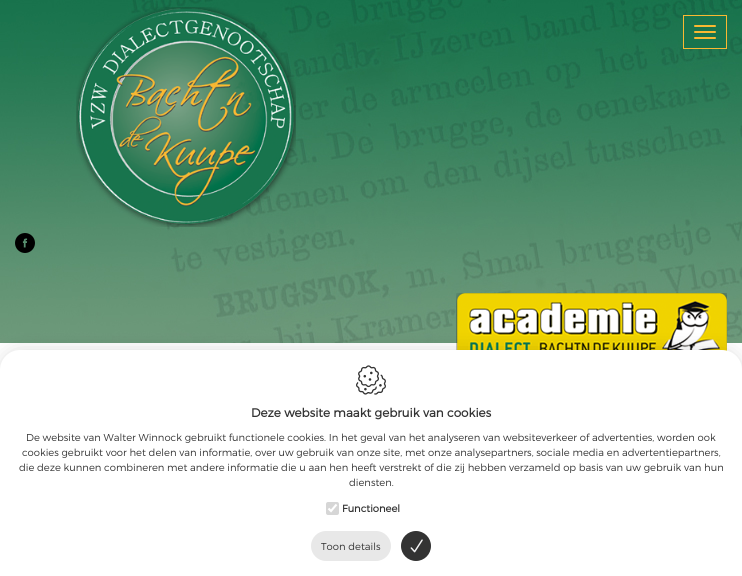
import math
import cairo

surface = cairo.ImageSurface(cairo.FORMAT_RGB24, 742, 576)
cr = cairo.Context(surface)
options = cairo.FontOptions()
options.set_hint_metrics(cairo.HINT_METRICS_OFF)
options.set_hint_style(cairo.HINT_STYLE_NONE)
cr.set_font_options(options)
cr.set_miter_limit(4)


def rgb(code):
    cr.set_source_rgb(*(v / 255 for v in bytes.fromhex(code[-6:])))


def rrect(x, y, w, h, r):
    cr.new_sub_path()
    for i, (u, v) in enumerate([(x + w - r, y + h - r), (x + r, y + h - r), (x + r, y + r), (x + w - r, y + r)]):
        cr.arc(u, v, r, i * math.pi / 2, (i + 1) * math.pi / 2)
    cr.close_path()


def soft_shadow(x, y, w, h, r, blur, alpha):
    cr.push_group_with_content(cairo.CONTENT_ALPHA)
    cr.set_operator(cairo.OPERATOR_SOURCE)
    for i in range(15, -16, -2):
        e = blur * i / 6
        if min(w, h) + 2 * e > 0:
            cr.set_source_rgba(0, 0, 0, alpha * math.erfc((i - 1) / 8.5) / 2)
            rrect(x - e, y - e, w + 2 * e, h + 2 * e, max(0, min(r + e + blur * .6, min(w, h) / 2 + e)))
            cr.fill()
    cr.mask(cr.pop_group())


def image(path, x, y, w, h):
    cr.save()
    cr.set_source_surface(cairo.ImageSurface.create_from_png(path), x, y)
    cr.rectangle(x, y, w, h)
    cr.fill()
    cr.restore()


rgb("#ffffff")
cr.paint()
image("img/1.png", 0, 0, 742, 343)
image("img/2.png", 76, 7, 220, 220)
image("img/3.png", 15, 233, 20, 20)
rgb("#18744e")
cr.rectangle(683.5, 15.5, 43, 33)
cr.fill_preserve()
rgb("#fab932")
cr.set_line_width(1)
cr.stroke()
rrect(694, 25, 22, 2, 1)
cr.fill()
rrect(694, 31, 22, 2, 1)
cr.fill()
rrect(694, 37, 22, 2, 1)
cr.fill()
image("img/4.png", 456, 293, 271, 58)
rgb("#000000")
soft_shadow(1, 351, 740, 224, 19, 10, 0.15)
rgb("#ffffff")
cr.new_path()
cr.move_to(20, 350)
cr.line_to(722, 350)
cr.curve_to(733, 350, 742, 359, 742, 370)
cr.line_to(742, 576)
cr.line_to(0, 576)
cr.line_to(0, 370)
cr.curve_to(0, 359, 9, 350, 20, 350)
cr.close_path()
cr.fill()
image("img/5.png", 356, 365, 30, 30)
rgb("#d6d6d6")
rrect(326, 502, 13, 13, 2)
cr.fill()
cr.new_path()
cr.move_to(328.5, 508.5)
cr.line_to(331, 511)
cr.line_to(336.5, 504.5)
rgb("#ffffff")
cr.set_line_width(2.1)
cr.stroke()
rgb("#e8e8e8")
rrect(311, 531, 80, 30, 15)
cr.fill()
image("img/6.png", 401, 531, 30, 30)
cr.select_font_face("Montserrat", cairo.FONT_SLANT_NORMAL, cairo.FONT_WEIGHT_BOLD)
cr.set_font_size(12)
rgb("#333333")
cr.move_to(251, 417)
cr.show_text("Deze website maakt gebruik van cookies")
cr.select_font_face("Montserrat Light")
cr.set_font_size(10)
for x, y, s in [
    (26, 441, "De website van Walter Winnock gebruikt functionele cookies. In het geval van het analyseren van websiteverkeer of advertenties, worden ook"),
    (22, 456, "cookies gebruikt voor het delen van informatie, over uw gebruik van onze site, met onze analysepartners, sociale media en advertentiepartners,"),
    (19, 471, "die deze kunnen combineren met andere informatie die u aan hen heeft verstrekt of die zij hebben verzameld op basis van uw gebruik van hun"),
    (349, 486, "diensten."),
]:
    cr.move_to(x, y)
    cr.show_text(s)
cr.select_font_face("Montserrat", cairo.FONT_SLANT_NORMAL, cairo.FONT_WEIGHT_BOLD)
cr.move_to(342, 512)
cr.show_text("Functioneel")
cr.select_font_face("Montserrat Light")
cr.move_to(321, 550)
cr.show_text("Toon details")
surface.write_to_png("page.png")
